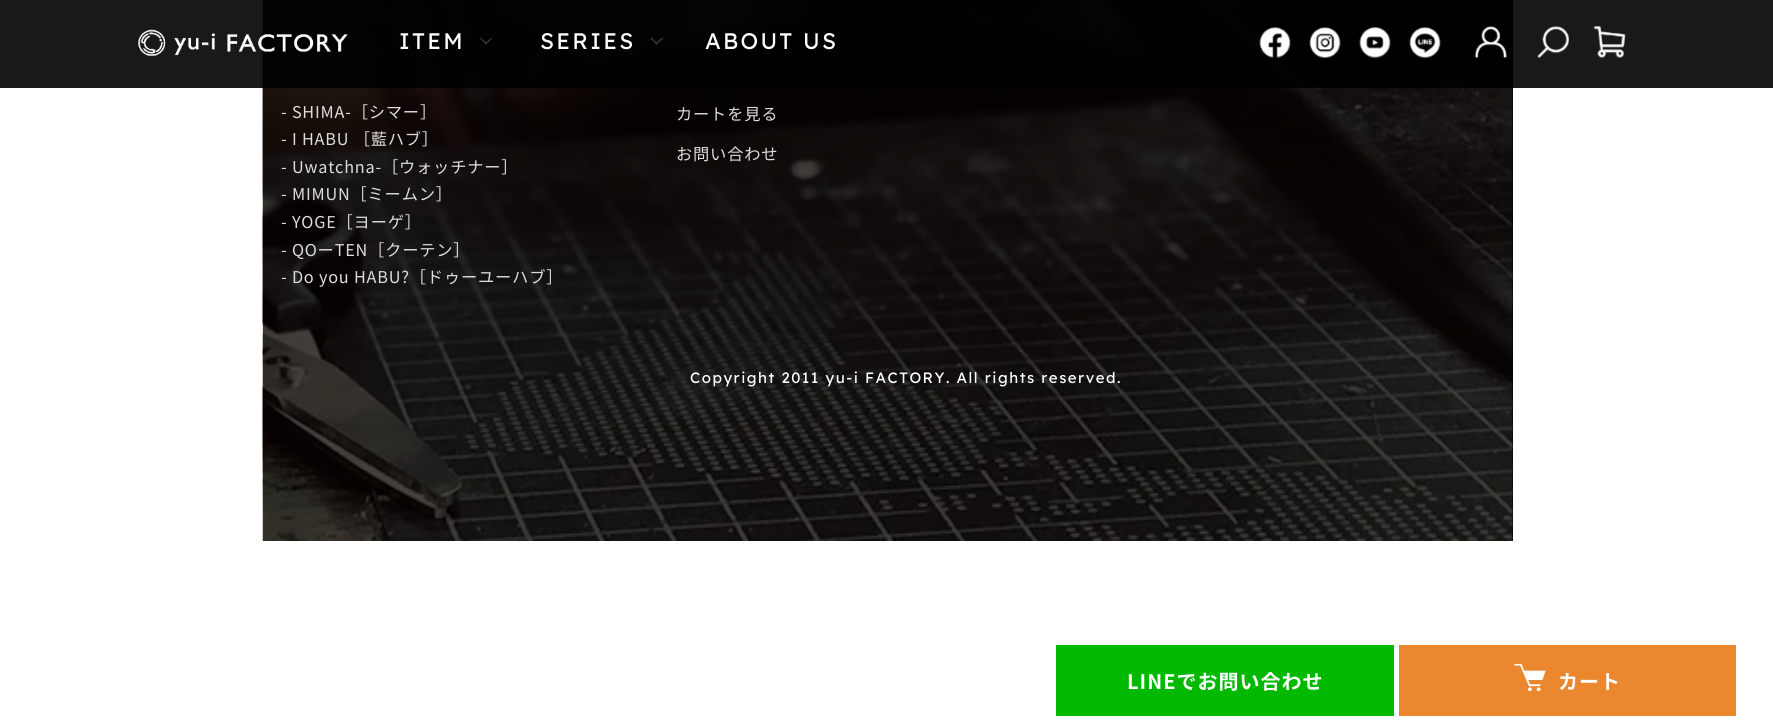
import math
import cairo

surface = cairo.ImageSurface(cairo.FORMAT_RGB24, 1773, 728)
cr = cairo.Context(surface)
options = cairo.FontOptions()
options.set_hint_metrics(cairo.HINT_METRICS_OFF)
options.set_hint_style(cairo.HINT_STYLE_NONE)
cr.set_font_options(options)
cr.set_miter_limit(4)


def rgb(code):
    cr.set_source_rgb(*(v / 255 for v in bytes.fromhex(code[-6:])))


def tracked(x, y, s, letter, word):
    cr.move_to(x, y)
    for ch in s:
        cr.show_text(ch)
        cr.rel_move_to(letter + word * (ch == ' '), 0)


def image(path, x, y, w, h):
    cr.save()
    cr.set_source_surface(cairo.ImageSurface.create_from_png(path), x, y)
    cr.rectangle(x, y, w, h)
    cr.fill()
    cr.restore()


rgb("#ffffff")
cr.paint()
rgb("#000000")
cr.rectangle(1512, 0, 1, 541)
cr.fill()
image("img/9.png", 262, 0, 1251, 541)
cr.set_source_rgba(0, 0, 0, 0.9)
cr.rectangle(0, 0, 1773, 88)
cr.fill()
image("img/1.png", 138, 29, 210, 28)
rgb("#393939")
cr.new_path()
cr.move_to(491.5, 37.5)
cr.line_to(492, 38.5)
cr.line_to(486, 44.5)
cr.line_to(485, 43.5)
cr.close_path()
cr.fill()
cr.new_path()
cr.move_to(480.5, 37.5)
cr.line_to(487, 43.5)
cr.line_to(486, 44.5)
cr.line_to(480, 38.5)
cr.close_path()
cr.fill()
cr.new_path()
cr.move_to(662, 37.5)
cr.line_to(663, 38.5)
cr.line_to(656.5, 44.5)
cr.line_to(655.5, 43.5)
cr.close_path()
cr.fill()
cr.new_path()
cr.move_to(651.5, 37.5)
cr.line_to(657.5, 43.5)
cr.line_to(656.5, 44.5)
cr.line_to(650.5, 38.5)
cr.close_path()
cr.fill()
image("img/2.png", 1259, 27, 32, 32)
image("img/3.png", 1309, 27, 32, 32)
image("img/4.png", 1359, 27, 32, 32)
image("img/5.png", 1409, 27, 32, 32)
image("img/6.png", 1474, 26, 33, 33)
image("img/7.png", 1537, 26, 32, 33)
image("img/8.png", 1593, 26, 33, 33)
rgb("#00b900")
cr.rectangle(1056, 645, 338, 71)
cr.fill()
rgb("#ea872f")
cr.rectangle(1399, 645, 337, 71)
cr.fill()
image("img/10.png", 1514, 664, 32, 27)
cr.select_font_face("Lexend")
cr.set_font_size(22.5)
rgb("#ffffff")
for x, y, s in [
    (399, 49, "ITEM"),
    (540, 49, "SERIES"),
    (705, 49, "ABOUT US"),
]:
    tracked(x, y, s, 2.25, 0)
cr.select_font_face("Noto Sans JP")
cr.set_font_size(16.25)
rgb("#dddddd")
for x, y, s in [
    (281, 118, "- SHIMA-［シマー］"),
    (281, 145, "- I HABU ［藍ハブ］"),
    (281, 173, "- Uwatchna-［ウォッチナー］"),
    (281, 200, "- MIMUN［ミームン］"),
    (281, 228, "- YOGE［ヨーゲ］"),
    (281, 256, "- QOーTEN［クーテン］"),
    (281, 283, "- Do you HABU?［ドゥーユーハブ］"),
    (676, 120, "カートを見る"),
    (676, 160, "お問い合わせ"),
]:
    tracked(x, y, s, 0.8, 0)
cr.select_font_face("Lexend")
cr.set_font_size(15)
rgb("#ffffff")
tracked(690, 383, "Copyright 2011 yu-i FACTORY. All rights reserved.", 1.5, 0)
cr.select_font_face("Noto Sans JP", cairo.FONT_SLANT_NORMAL, cairo.FONT_WEIGHT_BOLD)
cr.set_font_size(20)
tracked(1127, 689, "LINEでお問い合わせ", 1, 0)
tracked(1558, 689, "カート", 1, 0)
surface.write_to_png("page.png")
